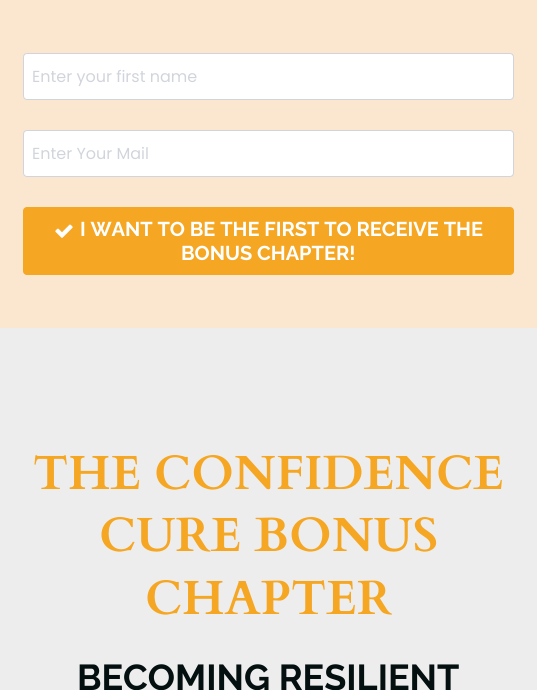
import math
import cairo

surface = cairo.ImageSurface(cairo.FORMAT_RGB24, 537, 690)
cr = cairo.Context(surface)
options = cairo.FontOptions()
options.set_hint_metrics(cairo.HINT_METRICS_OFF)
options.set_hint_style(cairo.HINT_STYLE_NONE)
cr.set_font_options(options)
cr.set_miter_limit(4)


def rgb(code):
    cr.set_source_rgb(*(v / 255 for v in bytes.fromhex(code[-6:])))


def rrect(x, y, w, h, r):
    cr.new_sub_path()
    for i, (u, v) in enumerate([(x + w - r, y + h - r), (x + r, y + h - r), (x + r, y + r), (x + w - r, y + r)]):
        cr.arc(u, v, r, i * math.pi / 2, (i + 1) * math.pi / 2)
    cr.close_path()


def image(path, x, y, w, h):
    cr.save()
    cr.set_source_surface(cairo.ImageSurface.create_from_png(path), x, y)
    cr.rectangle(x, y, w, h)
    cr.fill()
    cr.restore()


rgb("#fbe6cf")
cr.paint()
rgb("#ffffff")
rrect(23.5, 53.5, 490, 46, 3.5)
cr.fill_preserve()
rgb("#d1d5db")
cr.set_line_width(1)
cr.stroke()
rgb("#ffffff")
rrect(23.5, 130.5, 490, 46, 3.5)
cr.fill_preserve()
rgb("#d1d5db")
cr.stroke()
rgb("#f5a623")
rrect(23, 207, 491, 68, 4)
cr.fill()
image("img/1.png", 55, 224, 18, 14)
rgb("#ededed")
cr.rectangle(0, 328, 537, 362)
cr.fill()
cr.select_font_face("Poppins")
cr.set_font_size(16)
rgb("#d1d5db")
cr.move_to(32, 82)
cr.show_text("Enter your first name")
cr.move_to(32, 159)
cr.show_text("Enter Your Mail")
cr.select_font_face("Raleway", cairo.FONT_SLANT_NORMAL, cairo.FONT_WEIGHT_BOLD)
cr.set_font_size(20)
rgb("#ffffff")
cr.move_to(80, 236)
cr.show_text("I WANT TO BE THE FIRST TO RECEIVE THE")
cr.move_to(181, 260)
cr.show_text("BONUS CHAPTER!")
cr.select_font_face("Cardo", cairo.FONT_SLANT_NORMAL, cairo.FONT_WEIGHT_BOLD)
cr.set_font_size(48)
rgb("#f5a623")
for x, y, s in [
    (33, 489, "THE CONFIDENCE"),
    (99, 551, "CURE BONUS"),
    (145, 614, "CHAPTER"),
]:
    cr.move_to(x, y)
    cr.show_text(s)
cr.select_font_face("Raleway", cairo.FONT_SLANT_NORMAL, cairo.FONT_WEIGHT_BOLD)
cr.set_font_size(36)
rgb("#040f0f")
cr.move_to(77, 690)
cr.show_text("BECOMING RESILIENT")
surface.write_to_png("page.png")
